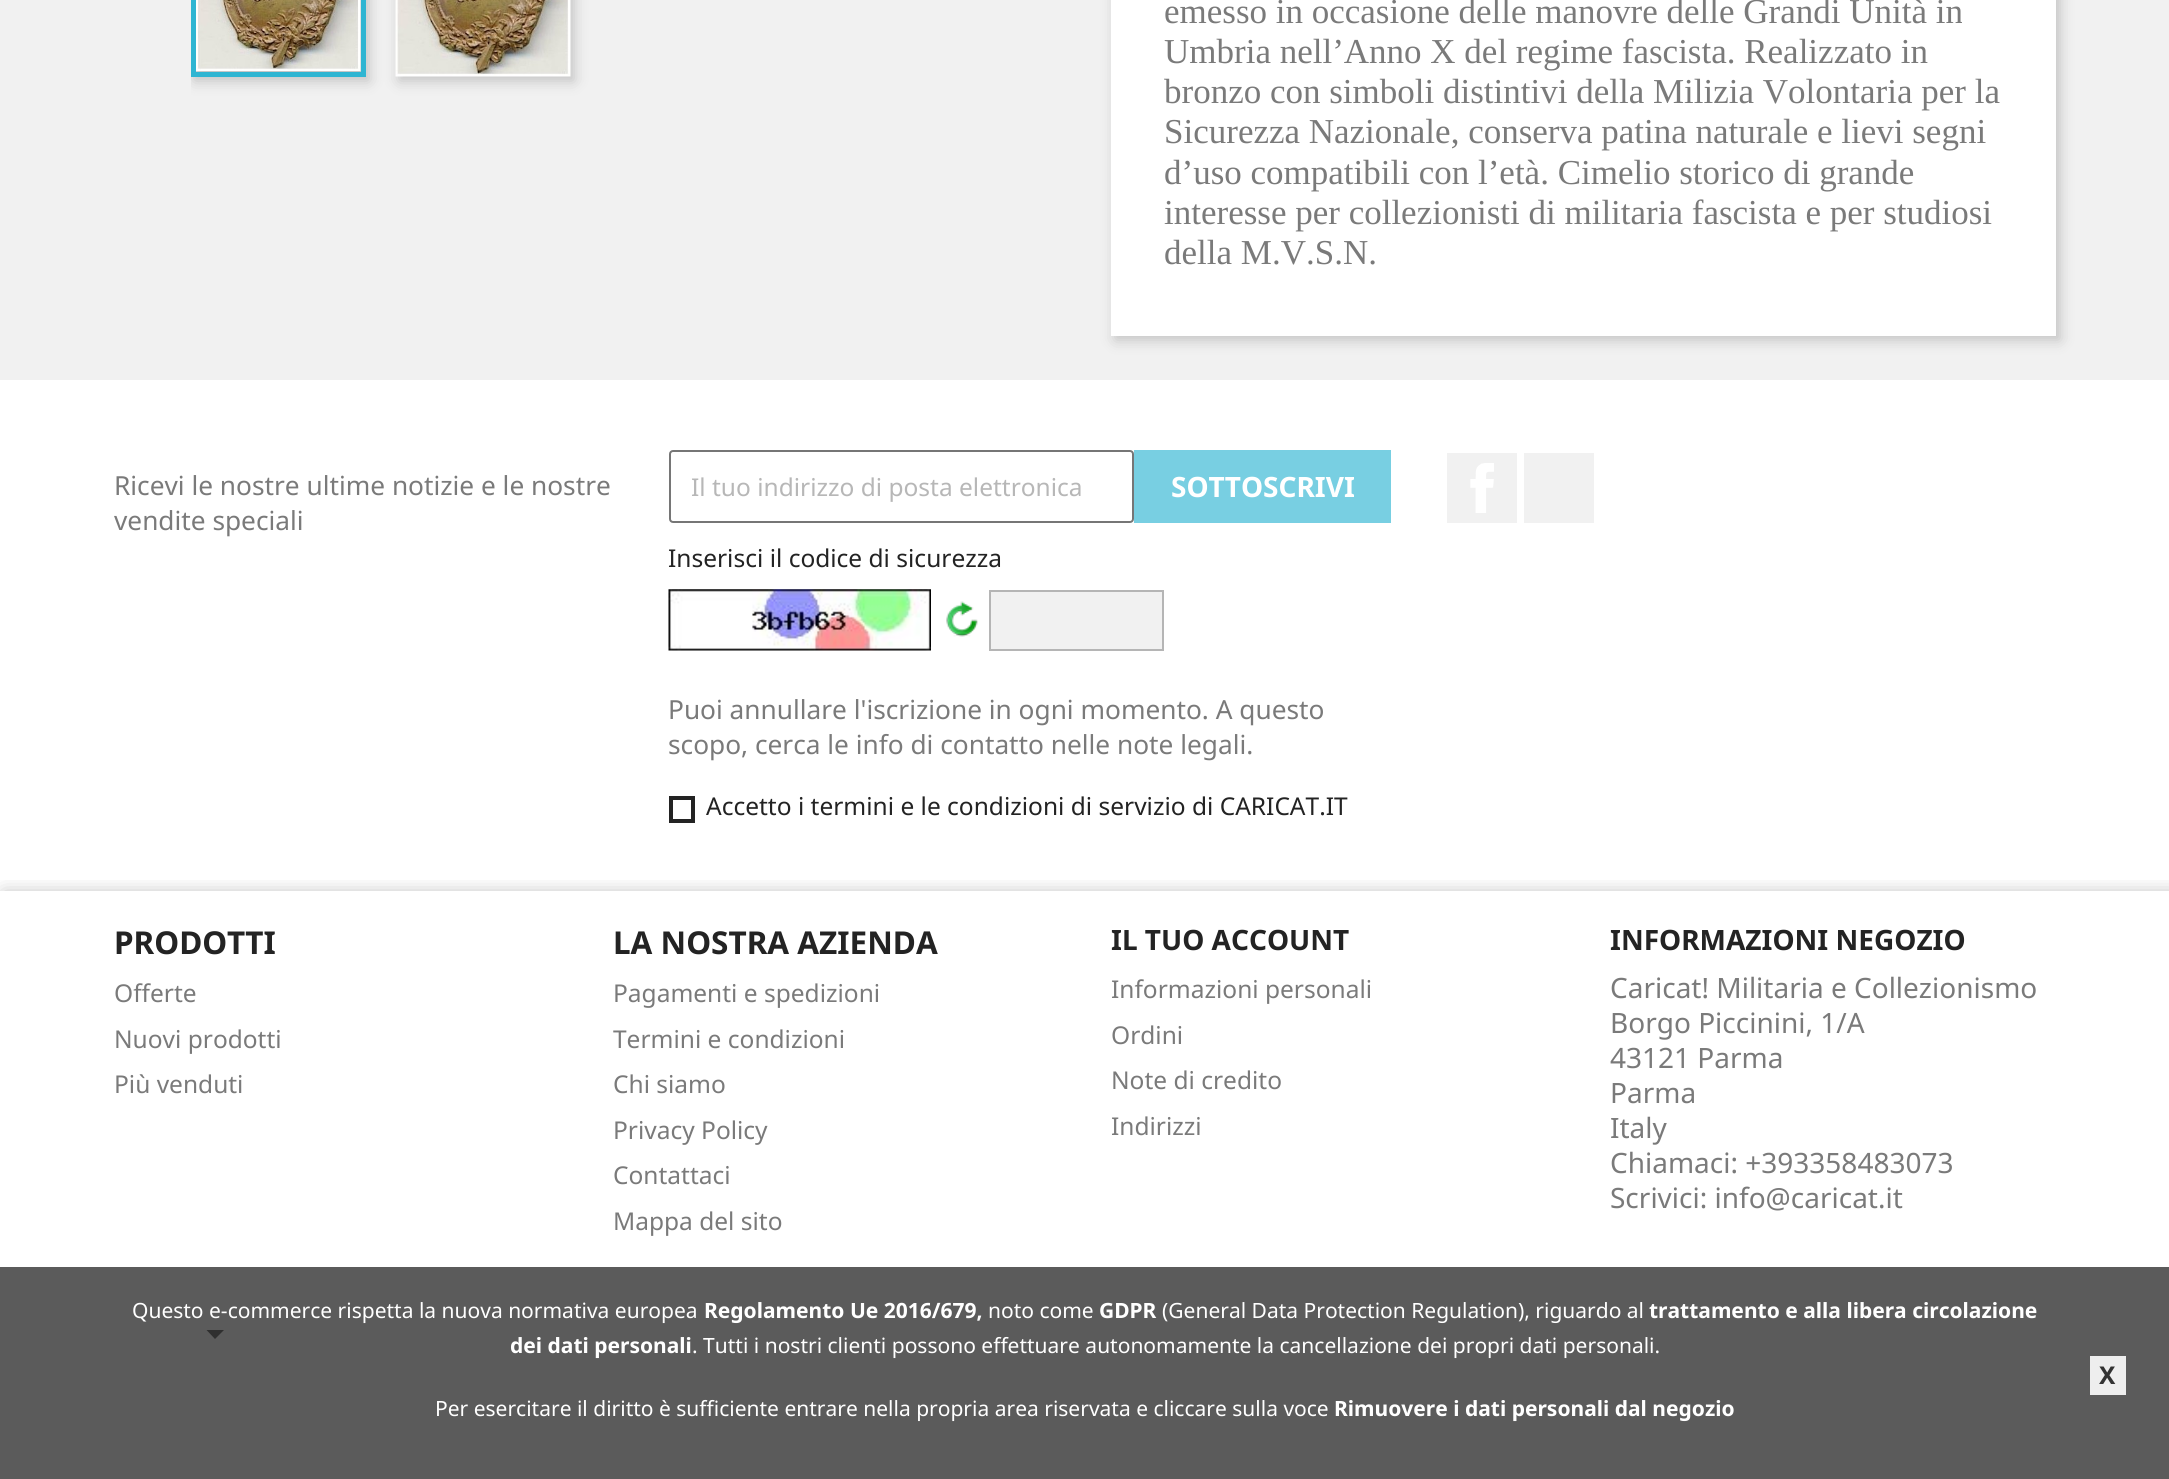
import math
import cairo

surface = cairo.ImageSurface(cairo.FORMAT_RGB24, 2169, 1479)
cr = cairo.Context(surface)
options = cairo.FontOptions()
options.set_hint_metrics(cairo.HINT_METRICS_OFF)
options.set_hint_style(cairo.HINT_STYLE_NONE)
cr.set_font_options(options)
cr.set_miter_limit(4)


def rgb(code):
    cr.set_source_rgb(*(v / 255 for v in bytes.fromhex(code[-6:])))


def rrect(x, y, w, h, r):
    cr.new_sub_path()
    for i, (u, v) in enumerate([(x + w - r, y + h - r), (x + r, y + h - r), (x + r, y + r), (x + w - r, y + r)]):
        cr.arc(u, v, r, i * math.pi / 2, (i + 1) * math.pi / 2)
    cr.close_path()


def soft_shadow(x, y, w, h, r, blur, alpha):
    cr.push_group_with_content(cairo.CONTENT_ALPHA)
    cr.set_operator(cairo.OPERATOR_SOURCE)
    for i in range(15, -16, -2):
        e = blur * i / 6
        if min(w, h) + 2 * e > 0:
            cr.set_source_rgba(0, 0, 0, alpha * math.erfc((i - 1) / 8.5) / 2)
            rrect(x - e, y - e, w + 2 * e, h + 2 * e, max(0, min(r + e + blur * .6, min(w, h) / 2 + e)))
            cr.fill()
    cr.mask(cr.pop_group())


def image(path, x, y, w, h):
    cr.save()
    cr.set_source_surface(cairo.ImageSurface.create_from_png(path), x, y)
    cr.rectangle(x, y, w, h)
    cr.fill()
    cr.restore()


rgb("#ffffff")
cr.paint()
rgb("#f1f1f1")
cr.rectangle(0, 0, 2169, 380)
cr.fill()
cr.save()
cr.rectangle(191, 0, 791, 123)
cr.clip()
rgb("#000000")
soft_shadow(194, -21, 175, 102, 0, 7, 0.2)
cr.restore()
cr.rectangle(193.5, -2.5, 170, 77)
rgb("#2fb5d2")
cr.set_line_width(5)
cr.stroke()
image("img/1.png", 196, 0, 165, 71)
rgb("#000000")
soft_shadow(399, -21, 175, 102, 0, 7, 0.2)
image("img/2.png", 395, 0, 176, 77)
soft_shadow(1115, -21, 945, 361, 0, 7, 0.2)
rgb("#ffffff")
cr.rectangle(1111, 0, 945, 336)
cr.fill()
rrect(670, 451, 463, 71, 3)
rgb("#767676")
cr.set_line_width(2)
cr.stroke()
rgb("#78cfe2")
cr.rectangle(1134, 450, 257, 73)
cr.fill()
image("img/3.png", 668, 589, 263, 62)
image("img/4.png", 946, 601, 32, 36)
rgb("#f1f1f1")
cr.rectangle(990, 591, 173, 59)
cr.fill_preserve()
rgb("#b5b5b5")
cr.stroke()
cr.rectangle(671, 798, 22, 23)
rgb("#232323")
cr.set_line_width(4)
cr.stroke()
rgb("#f1f1f1")
cr.rectangle(1447, 453, 70, 70)
cr.fill()
image("img/5.png", 1470, 463, 24, 50)
cr.rectangle(1524, 453, 70, 70)
cr.fill()
cr.save()
cr.rectangle(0, 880, 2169, 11)
cr.clip()
rgb("#000000")
soft_shadow(4, 894, 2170, 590, 0, 9.5, 0.3)
cr.restore()
rgb("#232323")
cr.new_path()
cr.move_to(206.5, 1330)
cr.line_to(224, 1330)
cr.line_to(215, 1339)
cr.close_path()
cr.fill()
cr.set_source_rgba(0.2, 0.2, 0.2, 0.8)
cr.rectangle(0, 1267, 2169, 212)
cr.fill()
rgb("#eeeeee")
cr.rectangle(2090, 1356, 36, 39)
cr.fill()
cr.select_font_face("Liberation Serif")
cr.set_font_size(35)
rgb("#7a7a7a")
for x, y, s in [
    (1164, 23, "emesso in occasione delle manovre delle Grandi Unità in"),
    (1164, 63, "Umbria nell’Anno X del regime fascista. Realizzato in"),
    (1164, 103, "bronzo con simboli distintivi della Milizia Volontaria per la"),
    (1164, 143, "Sicurezza Nazionale, conserva patina naturale e lievi segni"),
    (1164, 184, "d’uso compatibili con l’età. Cimelio storico di grande"),
    (1164, 224, "interesse per collezionisti di militaria fascista e per studiosi"),
    (1164, 264, "della M.V.S.N."),
]:
    cr.move_to(x, y)
    cr.show_text(s)
cr.select_font_face("Noto Sans")
cr.set_font_size(26.25)
cr.move_to(114, 495)
cr.show_text("Ricevi le nostre ultime notizie e le nostre")
cr.move_to(114, 530)
cr.show_text("vendite speciali")
cr.set_font_size(24.5)
rgb("#b7b7b7")
cr.move_to(691, 496)
cr.show_text("Il tuo indirizzo di posta elettronica")
cr.select_font_face("Noto Sans", cairo.FONT_SLANT_NORMAL, cairo.FONT_WEIGHT_BOLD)
cr.set_font_size(28)
rgb("#ffffff")
cr.move_to(1171, 497)
cr.show_text("SOTTOSCRIVI")
cr.select_font_face("Noto Sans")
cr.set_font_size(24.5)
rgb("#232323")
cr.move_to(668, 567)
cr.show_text("Inserisci il codice di sicurezza")
cr.set_font_size(26.25)
rgb("#7a7a7a")
cr.move_to(668, 719)
cr.show_text("Puoi annullare l'iscrizione in ogni momento. A questo")
cr.move_to(668, 754)
cr.show_text("scopo, cerca le info di contatto nelle note legali.")
cr.set_font_size(24.5)
rgb("#232323")
cr.move_to(706, 815)
cr.show_text("Accetto i termini e le condizioni di servizio di CARICAT.IT")
cr.select_font_face("Noto Sans", cairo.FONT_SLANT_NORMAL, cairo.FONT_WEIGHT_BOLD)
cr.set_font_size(31.5)
cr.move_to(114, 954)
cr.show_text("PRODOTTI")
cr.select_font_face("Noto Sans")
cr.set_font_size(24.5)
rgb("#7a7a7a")
for x, y, s in [
    (114, 1002, "Offerte"),
    (114, 1048, "Nuovi prodotti"),
    (114, 1093, "Più venduti"),
]:
    cr.move_to(x, y)
    cr.show_text(s)
cr.select_font_face("Noto Sans", cairo.FONT_SLANT_NORMAL, cairo.FONT_WEIGHT_BOLD)
cr.set_font_size(31.5)
rgb("#232323")
cr.move_to(613, 954)
cr.show_text("LA NOSTRA AZIENDA")
cr.select_font_face("Noto Sans")
cr.set_font_size(24.5)
rgb("#7a7a7a")
for x, y, s in [
    (613, 1002, "Pagamenti e spedizioni"),
    (613, 1048, "Termini e condizioni"),
    (613, 1093, "Chi siamo"),
    (613, 1139, "Privacy Policy"),
    (613, 1184, "Contattaci"),
    (613, 1230, "Mappa del sito"),
]:
    cr.move_to(x, y)
    cr.show_text(s)
cr.select_font_face("Noto Sans", cairo.FONT_SLANT_NORMAL, cairo.FONT_WEIGHT_BOLD)
cr.set_font_size(28)
rgb("#232323")
cr.move_to(1111, 950)
cr.show_text("IL TUO ACCOUNT")
cr.select_font_face("Noto Sans")
cr.set_font_size(24.5)
rgb("#7a7a7a")
for x, y, s in [
    (1111, 998, "Informazioni personali"),
    (1111, 1044, "Ordini"),
    (1111, 1089, "Note di credito"),
    (1111, 1135, "Indirizzi"),
]:
    cr.move_to(x, y)
    cr.show_text(s)
cr.select_font_face("Noto Sans", cairo.FONT_SLANT_NORMAL, cairo.FONT_WEIGHT_BOLD)
cr.set_font_size(28)
rgb("#232323")
cr.move_to(1610, 950)
cr.show_text("INFORMAZIONI NEGOZIO")
cr.select_font_face("Noto Sans")
rgb("#7a7a7a")
for x, y, s in [
    (1610, 998, "Caricat! Militaria e Collezionismo"),
    (1610, 1033, "Borgo Piccinini, 1/A"),
    (1610, 1068, "43121 Parma"),
    (1610, 1103, "Parma"),
    (1610, 1138, "Italy"),
    (1610, 1173, "Chiamaci: +393358483073"),
    (1610, 1208, "Scrivici: info@caricat.it"),
]:
    cr.move_to(x, y)
    cr.show_text(s)
cr.set_font_size(21)
rgb("#ffffff")
cr.move_to(132, 1318)
cr.show_text("Questo e-commerce rispetta la nuova normativa europea")
cr.select_font_face("Noto Sans", cairo.FONT_SLANT_NORMAL, cairo.FONT_WEIGHT_BOLD)
cr.move_to(704, 1318)
cr.show_text("Regolamento Ue 2016/679,")
cr.select_font_face("Noto Sans")
cr.move_to(988, 1318)
cr.show_text("noto come")
cr.select_font_face("Noto Sans", cairo.FONT_SLANT_NORMAL, cairo.FONT_WEIGHT_BOLD)
cr.move_to(1099, 1318)
cr.show_text("GDPR")
cr.select_font_face("Noto Sans")
cr.move_to(1162, 1318)
cr.show_text("(General Data Protection Regulation), riguardo al")
cr.select_font_face("Noto Sans", cairo.FONT_SLANT_NORMAL, cairo.FONT_WEIGHT_BOLD)
cr.move_to(1649, 1318)
cr.show_text("trattamento e alla libera circolazione")
cr.move_to(510, 1353)
cr.show_text("dei dati personali")
cr.select_font_face("Noto Sans")
cr.move_to(692, 1353)
cr.show_text(". Tutti i nostri clienti possono effettuare autonomamente la cancellazione dei propri dati personali.")
cr.move_to(435, 1416)
cr.show_text("Per esercitare il diritto è sufficiente entrare nella propria area riservata e cliccare sulla voce")
cr.select_font_face("Noto Sans", cairo.FONT_SLANT_NORMAL, cairo.FONT_WEIGHT_BOLD)
cr.move_to(1334, 1416)
cr.show_text("Rimuovere i dati personali dal negozio")
cr.set_font_size(24.5)
rgb("#333333")
cr.move_to(2099, 1384)
cr.show_text("X")
surface.write_to_png("page.png")
